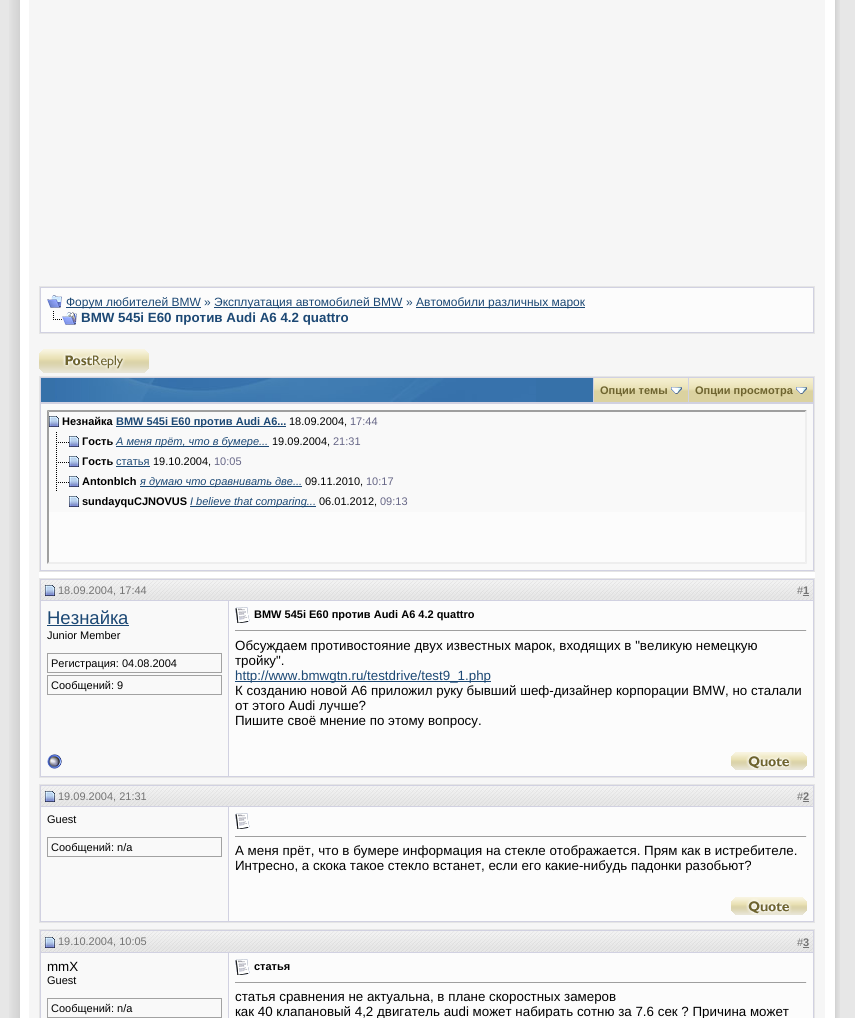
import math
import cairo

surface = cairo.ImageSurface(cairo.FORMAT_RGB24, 855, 1018)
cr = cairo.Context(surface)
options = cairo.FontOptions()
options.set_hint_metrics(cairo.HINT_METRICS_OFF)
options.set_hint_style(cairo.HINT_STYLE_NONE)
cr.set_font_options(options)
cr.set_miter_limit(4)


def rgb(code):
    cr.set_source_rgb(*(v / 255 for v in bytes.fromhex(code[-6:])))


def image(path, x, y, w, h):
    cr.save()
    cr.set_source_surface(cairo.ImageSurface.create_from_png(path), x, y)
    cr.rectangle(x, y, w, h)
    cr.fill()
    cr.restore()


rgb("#e7e7e7")
cr.paint()
image("img/1.png", 9, 0, 11, 1018)
for x, y, w, h, color in [
    (20, 0, 815, 1018, "#ffffff"),
    (29, 0, 10, 1018, "#f6f6f6"),
    (39, 0, 776, 376, "#f6f6f6"),
]:
    rgb(color)
    cr.rectangle(x, y, w, h)
    cr.fill()
rgb("#d1d1e1")
cr.rectangle(39.5, 286.5, 775, 47)
cr.fill_preserve()
rgb("#e5e5e5")
cr.set_line_width(1)
cr.stroke()
rgb("#fcfcfc")
cr.rectangle(41, 288, 772, 44)
cr.fill()
image("img/2.png", 47, 295, 15, 13)
for x, y, w, h, color in [
    (66, 307, 135, 1, "#1c4874"),
    (214, 307, 189, 1, "#1c4874"),
    (416, 307, 169, 1, "#1c4874"),
]:
    rgb(color)
    cr.rectangle(x, y, w, h)
    cr.fill()
image("img/3.png", 53, 311, 24, 14)
image("img/4.png", 39, 349, 110, 24)
for x, y, w, h, color in [
    (40, 377, 774, 194, "#d1d1e1"),
    (39, 376, 776, 1, "#e5e5e5"),
    (814, 376, 1, 196, "#e5e5e5"),
    (39, 376, 1, 27, "#e5e5e5"),
    (41, 378, 552, 24, "#3671a9"),
]:
    rgb(color)
    cr.rectangle(x, y, w, h)
    cr.fill()
image("img/5.png", 55, 378, 481, 24)
rgb("#dbd2a0")
cr.rectangle(594, 391, 94, 11)
cr.fill()
image("img/6.png", 594, 378, 94, 13)
image("img/7.png", 671, 387, 11, 7)
cr.rectangle(689, 391, 124, 11)
cr.fill()
image("img/8.png", 689, 378, 124, 13)
image("img/7.png", 796, 387, 11, 7)
for x, y, w, h, color in [
    (39, 571, 776, 1, "#e5e5e5"),
    (39, 403, 1, 169, "#e5e5e5"),
    (41, 404, 772, 166, "#f9f9f9"),
    (47, 410, 760, 154, "#fcfcfc"),
]:
    rgb(color)
    cr.rectangle(x, y, w, h)
    cr.fill()
rgb("#9f9f9f")
cr.new_path()
cr.move_to(47, 410)
cr.line_to(807, 410)
cr.line_to(805, 412)
cr.line_to(49, 412)
cr.close_path()
cr.fill()
rgb("#eeeeee")
cr.new_path()
cr.move_to(807, 410)
cr.line_to(807, 564)
cr.line_to(805, 562)
cr.line_to(805, 412)
cr.close_path()
cr.fill()
cr.new_path()
cr.move_to(807, 564)
cr.line_to(47, 564)
cr.line_to(49, 562)
cr.line_to(805, 562)
cr.close_path()
cr.fill()
rgb("#9f9f9f")
cr.new_path()
cr.move_to(47, 564)
cr.line_to(47, 410)
cr.line_to(49, 412)
cr.line_to(49, 562)
cr.close_path()
cr.fill()
rgb("#f9f9f9")
cr.rectangle(49, 412, 756, 100)
cr.fill()
image("img/9.png", 49, 416, 10, 11)
rgb("#1c4874")
cr.rectangle(116, 426, 170, 1)
cr.fill()
image("img/10.png", 56, 432, 13, 19)
image("img/9.png", 69, 436, 10, 11)
cr.rectangle(116, 446, 153, 1)
cr.fill()
image("img/10.png", 56, 452, 13, 19)
image("img/9.png", 69, 456, 10, 11)
cr.rectangle(116, 466, 34, 1)
cr.fill()
image("img/10.png", 56, 472, 13, 19)
image("img/9.png", 69, 476, 10, 11)
cr.rectangle(140, 486, 162, 1)
cr.fill()
image("img/9.png", 69, 496, 10, 11)
cr.rectangle(190, 506, 126, 1)
cr.fill()
rgb("#f6f6f6")
cr.rectangle(39, 778, 776, 6)
cr.fill()
cr.rectangle(39.5, 578.5, 775, 199)
rgb("#e5e5e5")
cr.stroke()
image("img/11.png", 41, 580, 188, 20)
for x, y, w, h, color in [
    (40, 579, 774, 1, "#d1d1e1"),
    (40, 600, 189, 1, "#d1d1e1"),
    (40, 579, 1, 167, "#d1d1e1"),
]:
    rgb(color)
    cr.rectangle(x, y, w, h)
    cr.fill()
image("img/12.png", 45, 585, 10, 11)
image("img/13.png", 229, 580, 584, 20)
for x, y, w, h, color in [
    (813, 579, 1, 198, "#d1d1e1"),
    (229, 600, 585, 1, "#d1d1e1"),
    (803, 595, 6, 1, "#737373"),
    (41, 601, 187, 175, "#f9f9f9"),
    (228, 601, 1, 176, "#d1d1e1"),
    (47, 625, 82, 1, "#1c4874"),
]:
    rgb(color)
    cr.rectangle(x, y, w, h)
    cr.fill()
cr.rectangle(47.5, 653.5, 174, 19)
rgb("#a2a2a2")
cr.stroke()
cr.rectangle(47.5, 675.5, 174, 19)
cr.stroke()
rgb("#fcfcfc")
cr.rectangle(229, 601, 584, 175)
cr.fill()
image("img/14.png", 235, 607, 15, 16)
for x, y, w, h, color in [
    (235, 630, 572, 1, "#9f9f9f"),
    (806, 630, 1, 1, "#eeeeee"),
    (235, 681, 256, 1, "#1c4874"),
    (40, 776, 774, 1, "#d1d1e1"),
    (40, 746, 1, 31, "#d1d1e1"),
]:
    rgb(color)
    cr.rectangle(x, y, w, h)
    cr.fill()
image("img/15.png", 47, 754, 15, 15)
image("img/16.png", 731, 752, 76, 18)
rgb("#f6f6f6")
cr.rectangle(39, 923, 776, 6)
cr.fill()
cr.rectangle(39.5, 784.5, 775, 138)
rgb("#e5e5e5")
cr.stroke()
image("img/11.png", 41, 786, 188, 20)
for x, y, w, h, color in [
    (40, 785, 774, 1, "#d1d1e1"),
    (40, 806, 189, 1, "#d1d1e1"),
    (40, 785, 1, 106, "#d1d1e1"),
]:
    rgb(color)
    cr.rectangle(x, y, w, h)
    cr.fill()
image("img/12.png", 45, 791, 10, 11)
image("img/13.png", 229, 786, 584, 20)
for x, y, w, h, color in [
    (813, 785, 1, 137, "#d1d1e1"),
    (229, 806, 585, 1, "#d1d1e1"),
    (803, 801, 6, 1, "#737373"),
    (41, 807, 187, 114, "#f9f9f9"),
    (228, 807, 1, 115, "#d1d1e1"),
]:
    rgb(color)
    cr.rectangle(x, y, w, h)
    cr.fill()
cr.rectangle(47.5, 837.5, 174, 19)
rgb("#a2a2a2")
cr.stroke()
rgb("#fcfcfc")
cr.rectangle(229, 807, 584, 114)
cr.fill()
image("img/14.png", 235, 813, 15, 16)
for x, y, w, h, color in [
    (235, 836, 572, 1, "#9f9f9f"),
    (806, 836, 1, 1, "#eeeeee"),
    (40, 921, 774, 1, "#d1d1e1"),
    (40, 891, 1, 31, "#d1d1e1"),
]:
    rgb(color)
    cr.rectangle(x, y, w, h)
    cr.fill()
image("img/16.png", 731, 897, 76, 18)
cr.rectangle(39.5, 929.5, 775, 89)
rgb("#e5e5e5")
cr.stroke()
image("img/17.png", 41, 931, 188, 21)
for x, y, w, h, color in [
    (40, 930, 774, 1, "#d1d1e1"),
    (40, 952, 189, 1, "#d1d1e1"),
    (40, 930, 1, 88, "#d1d1e1"),
]:
    rgb(color)
    cr.rectangle(x, y, w, h)
    cr.fill()
image("img/18.png", 45, 937, 10, 11)
image("img/19.png", 229, 931, 584, 21)
for x, y, w, h, color in [
    (813, 930, 1, 88, "#d1d1e1"),
    (229, 952, 585, 1, "#d1d1e1"),
    (803, 947, 6, 1, "#737373"),
    (41, 953, 187, 65, "#f9f9f9"),
    (228, 953, 1, 65, "#d1d1e1"),
]:
    rgb(color)
    cr.rectangle(x, y, w, h)
    cr.fill()
cr.rectangle(47.5, 998.5, 174, 19)
rgb("#a2a2a2")
cr.stroke()
rgb("#fcfcfc")
cr.rectangle(229, 953, 584, 65)
cr.fill()
image("img/14.png", 235, 959, 15, 16)
for x, y, w, h, color in [
    (235, 982, 572, 1, "#9f9f9f"),
    (806, 982, 1, 1, "#eeeeee"),
    (815, 0, 10, 1018, "#f6f6f6"),
]:
    rgb(color)
    cr.rectangle(x, y, w, h)
    cr.fill()
image("img/20.png", 835, 0, 5, 1018)
cr.select_font_face("Liberation Sans")
cr.set_font_size(12)
rgb("#1c4874")
for x, y, s in [
    (66, 306, "Форум любителей BMW"),
    (204, 306, "»"),
    (214, 306, "Эксплуатация автомобилей BMW"),
    (406, 306, "»"),
    (416, 306, "Автомобили различных марок"),
]:
    cr.move_to(x, y)
    cr.show_text(s)
cr.select_font_face("Liberation Sans", cairo.FONT_SLANT_NORMAL, cairo.FONT_WEIGHT_BOLD)
cr.set_font_size(13.35)
cr.move_to(81, 322)
cr.show_text("BMW 545i E60 против Audi A6 4.2 quattro")
cr.set_font_size(11)
rgb("#6e642f")
cr.move_to(600, 394)
cr.show_text("Опции темы")
cr.move_to(695, 394)
cr.show_text("Опции просмотра")
rgb("#000000")
cr.move_to(62, 425)
cr.show_text("Незнайка")
rgb("#1c4874")
cr.move_to(116, 425)
cr.show_text("BMW 545i E60 против Audi A6...")
cr.select_font_face("Liberation Sans")
rgb("#000000")
cr.move_to(289, 425)
cr.show_text("18.09.2004,")
rgb("#666686")
cr.move_to(350, 425)
cr.show_text("17:44")
cr.select_font_face("Liberation Sans", cairo.FONT_SLANT_NORMAL, cairo.FONT_WEIGHT_BOLD)
rgb("#000000")
cr.move_to(82, 445)
cr.show_text("Гость")
cr.select_font_face("Liberation Sans", cairo.FONT_SLANT_ITALIC)
rgb("#1c4874")
cr.move_to(116, 445)
cr.show_text("А меня прёт, что в бумере...")
cr.select_font_face("Liberation Sans")
rgb("#000000")
cr.move_to(272, 445)
cr.show_text("19.09.2004,")
rgb("#666686")
cr.move_to(333, 445)
cr.show_text("21:31")
cr.select_font_face("Liberation Sans", cairo.FONT_SLANT_NORMAL, cairo.FONT_WEIGHT_BOLD)
rgb("#000000")
cr.move_to(82, 465)
cr.show_text("Гость")
cr.select_font_face("Liberation Sans")
rgb("#1c4874")
cr.move_to(116, 465)
cr.show_text("статья")
rgb("#000000")
cr.move_to(153, 465)
cr.show_text("19.10.2004,")
rgb("#666686")
cr.move_to(214, 465)
cr.show_text("10:05")
cr.select_font_face("Liberation Sans", cairo.FONT_SLANT_NORMAL, cairo.FONT_WEIGHT_BOLD)
rgb("#000000")
cr.move_to(82, 485)
cr.show_text("AntonbIch")
cr.select_font_face("Liberation Sans", cairo.FONT_SLANT_ITALIC)
rgb("#1c4874")
cr.move_to(140, 485)
cr.show_text("я думаю что сравнивать две...")
cr.select_font_face("Liberation Sans")
rgb("#000000")
cr.move_to(305, 485)
cr.show_text("09.11.2010,")
rgb("#666686")
cr.move_to(366, 485)
cr.show_text("10:17")
cr.select_font_face("Liberation Sans", cairo.FONT_SLANT_NORMAL, cairo.FONT_WEIGHT_BOLD)
rgb("#000000")
cr.move_to(82, 505)
cr.show_text("sundayquCJNOVUS")
cr.select_font_face("Liberation Sans", cairo.FONT_SLANT_ITALIC)
rgb("#1c4874")
cr.move_to(190, 505)
cr.show_text("I believe that comparing...")
cr.select_font_face("Liberation Sans")
rgb("#000000")
cr.move_to(319, 505)
cr.show_text("06.01.2012,")
rgb("#666686")
cr.move_to(380, 505)
cr.show_text("09:13")
rgb("#737373")
cr.move_to(58, 594)
cr.show_text("18.09.2004, 17:44")
cr.move_to(797, 594)
cr.show_text("#")
cr.select_font_face("Liberation Sans", cairo.FONT_SLANT_NORMAL, cairo.FONT_WEIGHT_BOLD)
cr.move_to(803, 594)
cr.show_text("1")
cr.select_font_face("Liberation Sans")
cr.set_font_size(18.5)
rgb("#1c4874")
cr.move_to(47, 624)
cr.show_text("Незнайка")
cr.set_font_size(11)
rgb("#000000")
for x, y, s in [
    (47, 639, "Junior Member"),
    (51, 667, "Регистрация: 04.08.2004"),
    (51, 689, "Сообщений: 9"),
]:
    cr.move_to(x, y)
    cr.show_text(s)
cr.select_font_face("Liberation Sans", cairo.FONT_SLANT_NORMAL, cairo.FONT_WEIGHT_BOLD)
cr.move_to(254, 618)
cr.show_text("BMW 545i E60 против Audi A6 4.2 quattro")
cr.select_font_face("Liberation Sans")
cr.set_font_size(13.35)
cr.move_to(235, 650)
cr.show_text("Обсуждаем противостояние двух известных марок, входящих в \"великую немецкую")
cr.move_to(235, 665)
cr.show_text("тройку\".")
rgb("#1c4874")
cr.move_to(235, 680)
cr.show_text("http://www.bmwgtn.ru/testdrive/test9_1.php")
rgb("#000000")
for x, y, s in [
    (235, 695, "К созданию новой А6 приложил руку бывший шеф-дизайнер корпорации BMW, но сталали"),
    (235, 710, "от этого Audi лучше?"),
    (235, 725, "Пишите своё мнение по этому вопросу."),
]:
    cr.move_to(x, y)
    cr.show_text(s)
cr.set_font_size(11)
rgb("#737373")
cr.move_to(58, 800)
cr.show_text("19.09.2004, 21:31")
cr.move_to(797, 800)
cr.show_text("#")
cr.select_font_face("Liberation Sans", cairo.FONT_SLANT_NORMAL, cairo.FONT_WEIGHT_BOLD)
cr.move_to(803, 800)
cr.show_text("2")
cr.select_font_face("Liberation Sans")
rgb("#000000")
cr.move_to(47, 823)
cr.show_text("Guest")
cr.move_to(51, 851)
cr.show_text("Сообщений: n/a")
cr.set_font_size(13.35)
cr.move_to(235, 855)
cr.show_text("А меня прёт, что в бумере информация на стекле отображается. Прям как в истребителе.")
cr.move_to(235, 870)
cr.show_text("Интресно, а скока такое стекло встанет, если его какие-нибудь падонки разобьют?")
cr.set_font_size(11)
rgb("#737373")
cr.move_to(58, 945)
cr.show_text("19.10.2004, 10:05")
cr.move_to(797, 946)
cr.show_text("#")
cr.select_font_face("Liberation Sans", cairo.FONT_SLANT_NORMAL, cairo.FONT_WEIGHT_BOLD)
cr.move_to(803, 946)
cr.show_text("3")
cr.select_font_face("Liberation Sans")
cr.set_font_size(13.35)
rgb("#000000")
cr.move_to(47, 971)
cr.show_text("mmX")
cr.set_font_size(11)
cr.move_to(47, 984)
cr.show_text("Guest")
cr.move_to(51, 1012)
cr.show_text("Сообщений: n/a")
cr.select_font_face("Liberation Sans", cairo.FONT_SLANT_NORMAL, cairo.FONT_WEIGHT_BOLD)
cr.move_to(254, 970)
cr.show_text("статья")
cr.select_font_face("Liberation Sans")
cr.set_font_size(13.35)
cr.move_to(235, 1001)
cr.show_text("статья сравнения не актуальна, в плане скоростных замеров")
cr.move_to(235, 1016)
cr.show_text("как 40 клапановый 4,2 двигатель audi может набирать сотню за 7.6 сек ? Причина может")
surface.write_to_png("page.png")
